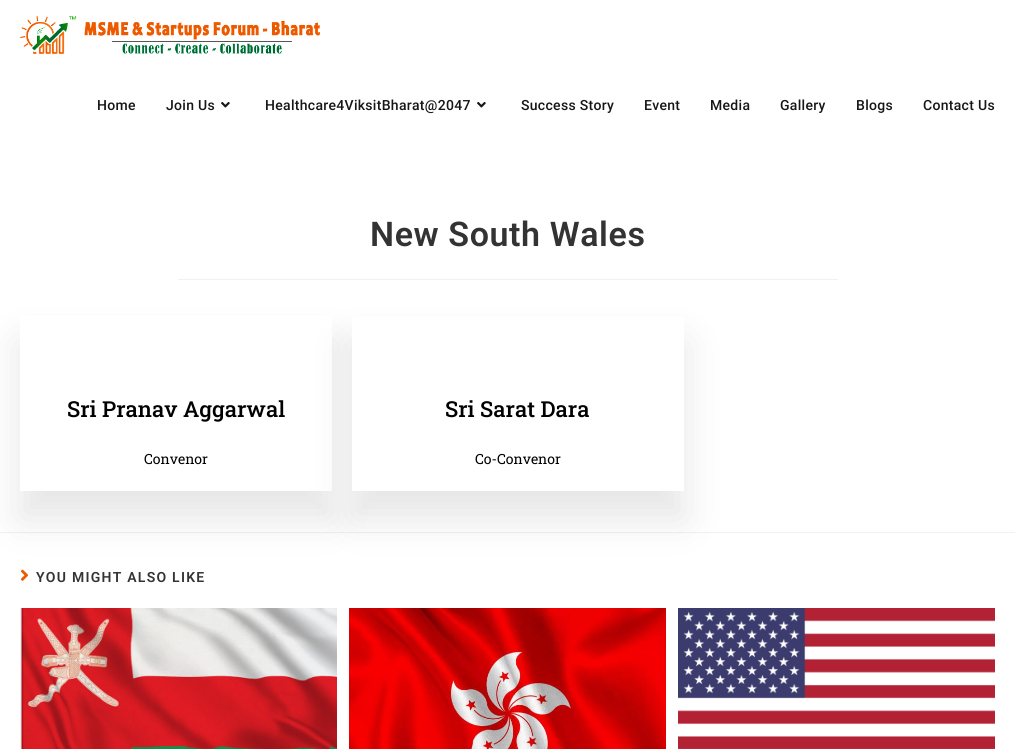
import math
import cairo

surface = cairo.ImageSurface(cairo.FORMAT_RGB24, 1015, 749)
cr = cairo.Context(surface)
options = cairo.FontOptions()
options.set_hint_metrics(cairo.HINT_METRICS_OFF)
options.set_hint_style(cairo.HINT_STYLE_NONE)
cr.set_font_options(options)
cr.set_miter_limit(4)


def rgb(code):
    cr.set_source_rgb(*(v / 255 for v in bytes.fromhex(code[-6:])))


def tracked(x, y, s, letter, word):
    cr.move_to(x, y)
    for ch in s:
        cr.show_text(ch)
        cr.rel_move_to(letter + word * (ch == ' '), 0)


def rrect(x, y, w, h, r):
    cr.new_sub_path()
    for i, (u, v) in enumerate([(x + w - r, y + h - r), (x + r, y + h - r), (x + r, y + r), (x + w - r, y + r)]):
        cr.arc(u, v, r, i * math.pi / 2, (i + 1) * math.pi / 2)
    cr.close_path()


def soft_shadow(x, y, w, h, r, blur, alpha):
    cr.push_group_with_content(cairo.CONTENT_ALPHA)
    cr.set_operator(cairo.OPERATOR_SOURCE)
    for i in range(15, -16, -2):
        e = blur * i / 6
        if min(w, h) + 2 * e > 0:
            cr.set_source_rgba(0, 0, 0, alpha * math.erfc((i - 1) / 8.5) / 2)
            rrect(x - e, y - e, w + 2 * e, h + 2 * e, max(0, min(r + e + blur * .6, min(w, h) / 2 + e)))
            cr.fill()
    cr.mask(cr.pop_group())


def image(path, x, y, w, h):
    cr.save()
    cr.set_source_surface(cairo.ImageSurface.create_from_png(path), x, y)
    cr.rectangle(x, y, w, h)
    cr.fill()
    cr.restore()


rgb("#ffffff")
cr.paint()
image("img/1.png", 20, 16, 300, 38)
image("img/2.png", 221, 102, 9, 6)
image("img/2.png", 477, 102, 9, 6)
rgb("#f1f1f1")
cr.rectangle(178, 279, 660, 1)
cr.fill()
cr.rectangle(0, 532, 1015, 1)
cr.fill()
image("img/3.png", 20, 569, 9, 12)
cr.save()
cr.set_fill_rule(cairo.FILL_RULE_EVEN_ODD)
cr.new_path()
cr.move_to(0, 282)
cr.line_to(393, 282)
cr.line_to(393, 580)
cr.line_to(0, 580)
cr.close_path()
cr.move_to(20, 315)
cr.line_to(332, 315)
cr.line_to(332, 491)
cr.line_to(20, 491)
cr.close_path()
cr.clip()
rgb("#000000")
soft_shadow(20, 343, 312, 176, 0, 20, 0.1)
cr.restore()
rgb("#000000")
soft_shadow(352, 343, 332, 176, 0, 20, 0.1)
rgb("#ffffff")
cr.rectangle(352, 317, 332, 174)
cr.fill()
image("img/4.png", 20, 608, 317, 141)
image("img/5.png", 349, 608, 317, 141)
image("img/6.png", 678, 608, 317, 141)
cr.select_font_face("Roboto Medium")
cr.set_font_size(14)
rgb("#161616")
for x, y, s in [
    (97, 110, "Home"),
    (166, 110, "Join Us"),
    (265, 110, "Healthcare4ViksitBharat@2047"),
    (521, 110, "Success Story"),
    (644, 110, "Event"),
    (710, 110, "Media"),
    (780, 110, "Gallery"),
    (856, 110, "Blogs"),
    (923, 110, "Contact Us"),
]:
    tracked(x, y, s, 0.3, 0)
cr.select_font_face("Roboto SemiBold")
cr.set_font_size(34)
rgb("#333333")
tracked(370, 246, "New South Wales", 0.6, 0)
cr.select_font_face("Roboto Slab Medium")
cr.set_font_size(22)
rgb("#000000")
cr.move_to(67, 417)
cr.show_text("Sri Pranav Aggarwal")
cr.select_font_face("Roboto Slab")
cr.set_font_size(14)
cr.move_to(144, 464)
cr.show_text("Convenor")
cr.select_font_face("Roboto Slab Medium")
cr.set_font_size(22)
cr.move_to(445, 417)
cr.show_text("Sri Sarat Dara")
cr.select_font_face("Roboto Slab")
cr.set_font_size(14)
cr.move_to(475, 464)
cr.show_text("Co-Convenor")
cr.select_font_face("Roboto SemiBold")
rgb("#333333")
tracked(36, 582, "YOU MIGHT ALSO LIKE", 1.25, 0)
surface.write_to_png("page.png")
